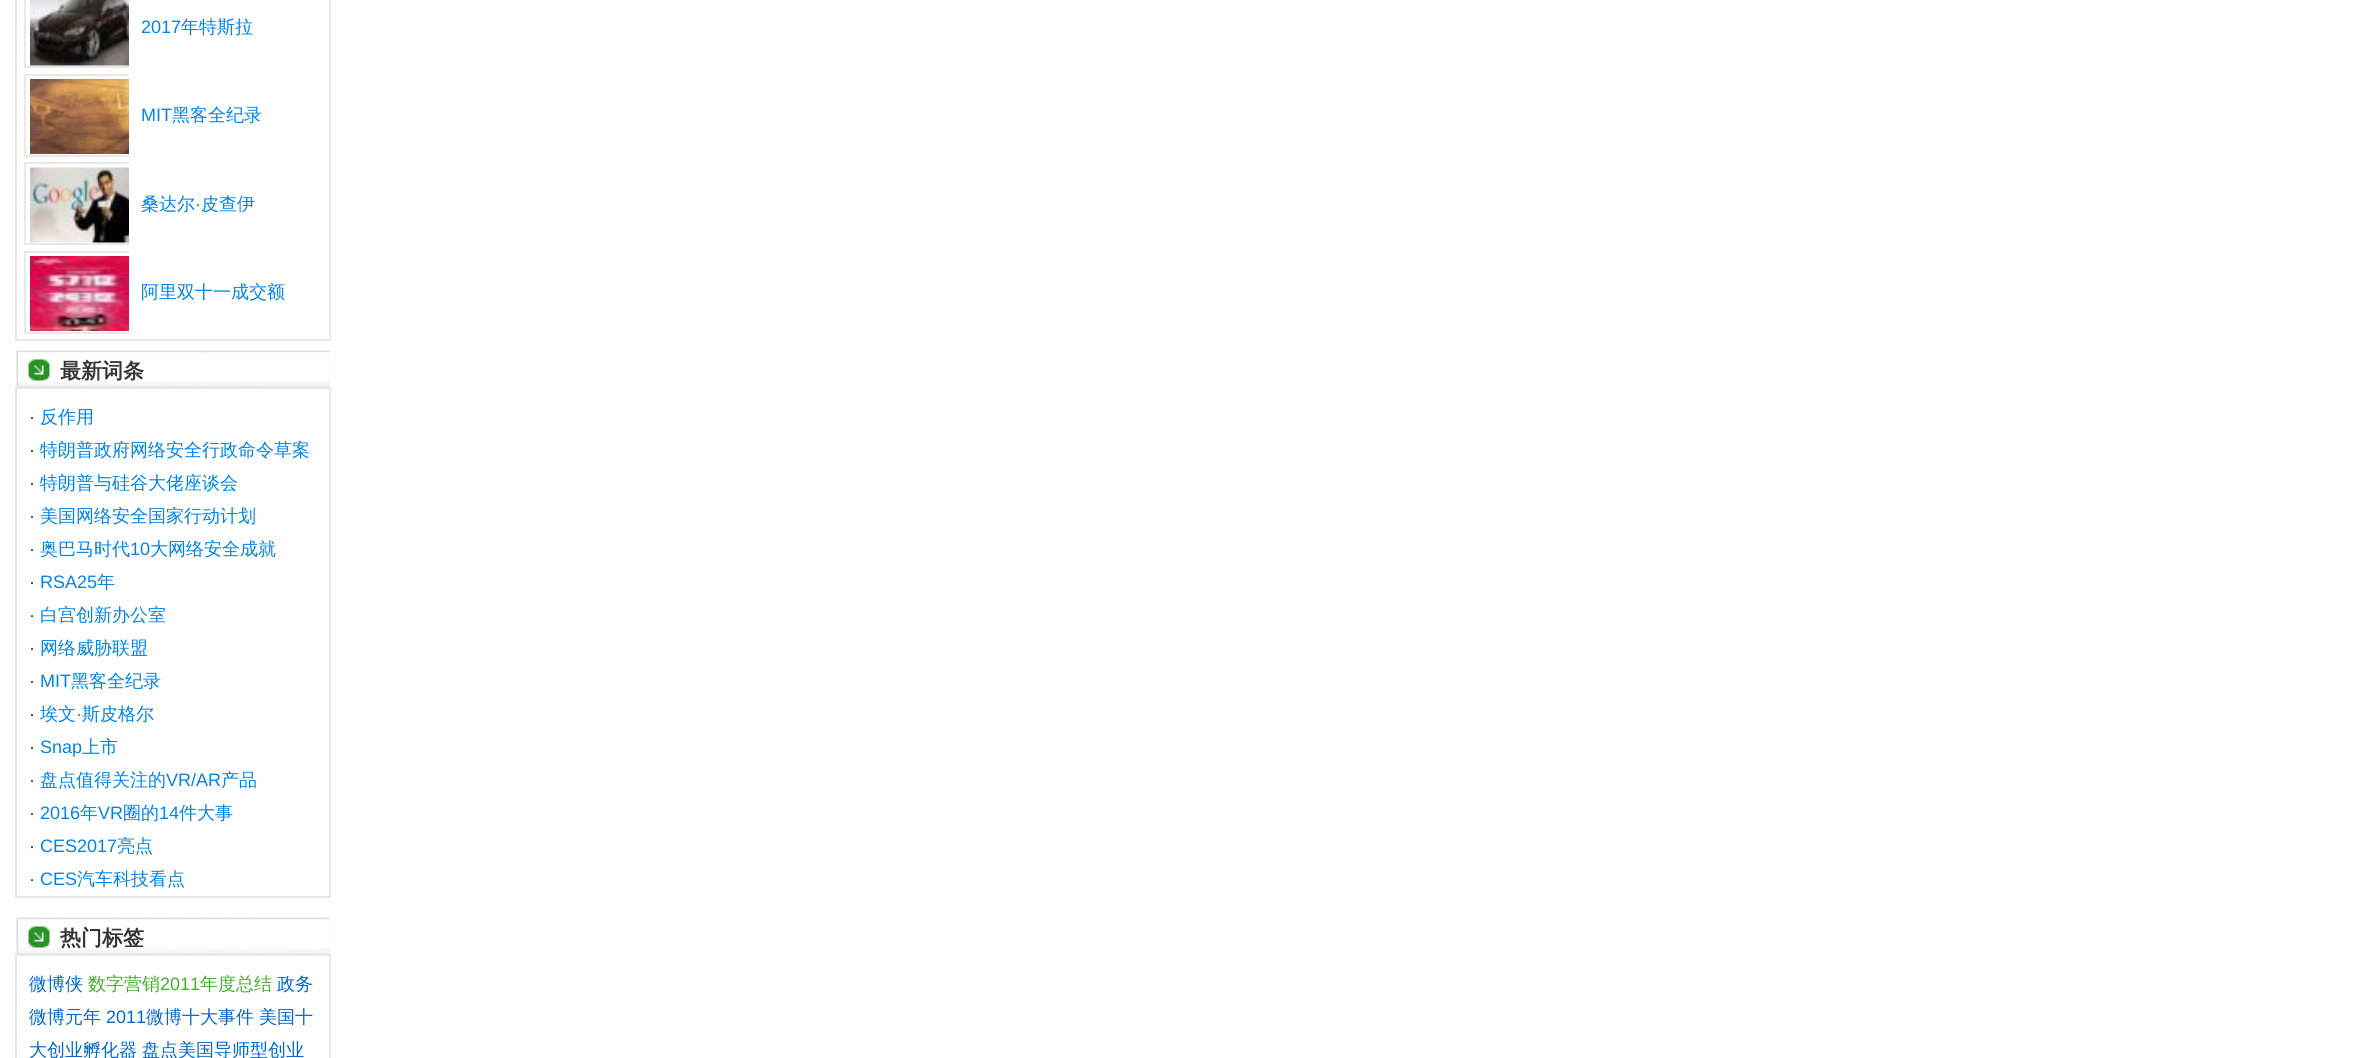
import math
import cairo

surface = cairo.ImageSurface(cairo.FORMAT_RGB24, 2374, 1058)
cr = cairo.Context(surface)
options = cairo.FontOptions()
options.set_hint_metrics(cairo.HINT_METRICS_OFF)
options.set_hint_style(cairo.HINT_STYLE_NONE)
cr.set_font_options(options)
cr.set_miter_limit(4)


def rgb(code):
    cr.set_source_rgb(*(v / 255 for v in bytes.fromhex(code[-6:])))


def image(path, x, y, w, h):
    cr.save()
    cr.set_source_surface(cairo.ImageSurface.create_from_png(path), x, y)
    cr.rectangle(x, y, w, h)
    cr.fill()
    cr.restore()


rgb("#ffffff")
cr.paint()
for x, y, w, h, color in [
    (329, 0, 2, 341, "#e8e8e8"),
    (15, 339, 315, 2, "#e8e8e8"),
    (15, 0, 2, 341, "#e8e8e8"),
    (24, 66, 105, 2, "#e9e9e9"),
    (24, 0, 2, 68, "#e9e9e9"),
]:
    rgb(color)
    cr.rectangle(x, y, w, h)
    cr.fill()
image("img/1.png", 30, 0, 99, 66)
for x, y, w, h, color in [
    (24, 74, 105, 2, "#e9e9e9"),
    (24, 155, 105, 2, "#e9e9e9"),
    (24, 74, 2, 82, "#e9e9e9"),
]:
    rgb(color)
    cr.rectangle(x, y, w, h)
    cr.fill()
image("img/2.png", 30, 79, 99, 75)
for x, y, w, h, color in [
    (24, 162, 105, 2, "#e9e9e9"),
    (24, 243, 105, 2, "#e9e9e9"),
    (24, 162, 2, 83, "#e9e9e9"),
]:
    rgb(color)
    cr.rectangle(x, y, w, h)
    cr.fill()
image("img/3.png", 30, 167, 99, 76)
for x, y, w, h, color in [
    (24, 251, 105, 2, "#e9e9e9"),
    (24, 332, 105, 2, "#e9e9e9"),
    (24, 251, 2, 82, "#e9e9e9"),
]:
    rgb(color)
    cr.rectangle(x, y, w, h)
    cr.fill()
image("img/4.png", 30, 256, 99, 75)
image("img/5.png", 16, 350, 314, 37)
for x, y, w, h, color in [
    (15, 387, 315, 2, "#e8e8e8"),
    (329, 387, 2, 510, "#e8e8e8"),
    (15, 896, 315, 2, "#e8e8e8"),
    (15, 387, 2, 510, "#e8e8e8"),
]:
    rgb(color)
    cr.rectangle(x, y, w, h)
    cr.fill()
image("img/6.png", 16, 917, 314, 37)
for x, y, w, h, color in [
    (15, 954, 315, 2, "#e8e8e8"),
    (329, 954, 2, 104, "#e8e8e8"),
    (15, 954, 2, 104, "#e8e8e8"),
]:
    rgb(color)
    cr.rectangle(x, y, w, h)
    cr.fill()
cr.select_font_face("Liberation Sans")
cr.set_font_size(18)
rgb("#0085e7")
cr.move_to(141, 33)
cr.show_text("2017")
cr.select_font_face("WenQuanYi Zen Hei Medium")
cr.move_to(181, 33)
cr.show_text("年特斯拉")
cr.select_font_face("Liberation Sans")
cr.move_to(141, 121)
cr.show_text("MIT")
cr.select_font_face("WenQuanYi Zen Hei Medium")
cr.move_to(172, 121)
cr.show_text("黑客全纪录")
cr.move_to(141, 210)
cr.show_text("桑达尔")
cr.select_font_face("Liberation Sans")
cr.move_to(195, 210)
cr.show_text("·")
cr.select_font_face("WenQuanYi Zen Hei Medium")
cr.move_to(201, 210)
cr.show_text("皮查伊")
cr.move_to(141, 298)
cr.show_text("阿里双十一成交额")
cr.select_font_face("WenQuanYi Zen Hei", cairo.FONT_SLANT_NORMAL, cairo.FONT_WEIGHT_BOLD)
cr.set_font_size(21)
rgb("#333333")
cr.move_to(60, 378)
cr.show_text("最新词条")
cr.select_font_face("Liberation Sans")
cr.set_font_size(18)
cr.move_to(29, 423)
cr.show_text("·")
cr.select_font_face("WenQuanYi Zen Hei Medium")
rgb("#0085e7")
cr.move_to(40, 423)
cr.show_text("反作用")
cr.select_font_face("Liberation Sans")
rgb("#333333")
cr.move_to(29, 456)
cr.show_text("·")
cr.select_font_face("WenQuanYi Zen Hei Medium")
rgb("#0085e7")
cr.move_to(40, 456)
cr.show_text("特朗普政府网络安全行政命令草案")
cr.select_font_face("Liberation Sans")
rgb("#333333")
cr.move_to(29, 489)
cr.show_text("·")
cr.select_font_face("WenQuanYi Zen Hei Medium")
rgb("#0085e7")
cr.move_to(40, 489)
cr.show_text("特朗普与硅谷大佬座谈会")
cr.select_font_face("Liberation Sans")
rgb("#333333")
cr.move_to(29, 522)
cr.show_text("·")
cr.select_font_face("WenQuanYi Zen Hei Medium")
rgb("#0085e7")
cr.move_to(40, 522)
cr.show_text("美国网络安全国家行动计划")
cr.select_font_face("Liberation Sans")
rgb("#333333")
cr.move_to(29, 555)
cr.show_text("·")
cr.select_font_face("WenQuanYi Zen Hei Medium")
rgb("#0085e7")
cr.move_to(40, 555)
cr.show_text("奥巴马时代")
cr.select_font_face("Liberation Sans")
cr.move_to(130, 555)
cr.show_text("10")
cr.select_font_face("WenQuanYi Zen Hei Medium")
cr.move_to(150, 555)
cr.show_text("大网络安全成就")
cr.select_font_face("Liberation Sans")
rgb("#333333")
cr.move_to(29, 588)
cr.show_text("·")
rgb("#0085e7")
cr.move_to(40, 588)
cr.show_text("RSA25")
cr.select_font_face("WenQuanYi Zen Hei Medium")
cr.move_to(97, 588)
cr.show_text("年")
cr.select_font_face("Liberation Sans")
rgb("#333333")
cr.move_to(29, 621)
cr.show_text("·")
cr.select_font_face("WenQuanYi Zen Hei Medium")
rgb("#0085e7")
cr.move_to(40, 621)
cr.show_text("白宫创新办公室")
cr.select_font_face("Liberation Sans")
rgb("#333333")
cr.move_to(29, 654)
cr.show_text("·")
cr.select_font_face("WenQuanYi Zen Hei Medium")
rgb("#0085e7")
cr.move_to(40, 654)
cr.show_text("网络威胁联盟")
cr.select_font_face("Liberation Sans")
rgb("#333333")
cr.move_to(29, 687)
cr.show_text("·")
rgb("#0085e7")
cr.move_to(40, 687)
cr.show_text("MIT")
cr.select_font_face("WenQuanYi Zen Hei Medium")
cr.move_to(71, 687)
cr.show_text("黑客全纪录")
cr.select_font_face("Liberation Sans")
rgb("#333333")
cr.move_to(29, 720)
cr.show_text("·")
cr.select_font_face("WenQuanYi Zen Hei Medium")
rgb("#0085e7")
cr.move_to(40, 720)
cr.show_text("埃文")
cr.select_font_face("Liberation Sans")
cr.move_to(76, 720)
cr.show_text("·")
cr.select_font_face("WenQuanYi Zen Hei Medium")
cr.move_to(82, 720)
cr.show_text("斯皮格尔")
cr.select_font_face("Liberation Sans")
rgb("#333333")
cr.move_to(29, 753)
cr.show_text("·")
rgb("#0085e7")
cr.move_to(40, 753)
cr.show_text("Snap")
cr.select_font_face("WenQuanYi Zen Hei Medium")
cr.move_to(82, 753)
cr.show_text("上市")
cr.select_font_face("Liberation Sans")
rgb("#333333")
cr.move_to(29, 786)
cr.show_text("·")
cr.select_font_face("WenQuanYi Zen Hei Medium")
rgb("#0085e7")
cr.move_to(40, 786)
cr.show_text("盘点值得关注的")
cr.select_font_face("Liberation Sans")
cr.move_to(166, 786)
cr.show_text("VR/AR")
cr.select_font_face("WenQuanYi Zen Hei Medium")
cr.move_to(221, 786)
cr.show_text("产品")
cr.select_font_face("Liberation Sans")
rgb("#333333")
cr.move_to(29, 819)
cr.show_text("·")
rgb("#0085e7")
cr.move_to(40, 819)
cr.show_text("2016")
cr.select_font_face("WenQuanYi Zen Hei Medium")
cr.move_to(80, 819)
cr.show_text("年")
cr.select_font_face("Liberation Sans")
cr.move_to(98, 819)
cr.show_text("VR")
cr.select_font_face("WenQuanYi Zen Hei Medium")
cr.move_to(123, 819)
cr.show_text("圈的")
cr.select_font_face("Liberation Sans")
cr.move_to(159, 819)
cr.show_text("14")
cr.select_font_face("WenQuanYi Zen Hei Medium")
cr.move_to(179, 819)
cr.show_text("件大事")
cr.select_font_face("Liberation Sans")
rgb("#333333")
cr.move_to(29, 852)
cr.show_text("·")
rgb("#0085e7")
cr.move_to(40, 852)
cr.show_text("CES2017")
cr.select_font_face("WenQuanYi Zen Hei Medium")
cr.move_to(117, 852)
cr.show_text("亮点")
cr.select_font_face("Liberation Sans")
rgb("#333333")
cr.move_to(29, 885)
cr.show_text("·")
rgb("#0085e7")
cr.move_to(40, 885)
cr.show_text("CES")
cr.select_font_face("WenQuanYi Zen Hei Medium")
cr.move_to(77, 885)
cr.show_text("汽车科技看点")
cr.select_font_face("WenQuanYi Zen Hei", cairo.FONT_SLANT_NORMAL, cairo.FONT_WEIGHT_BOLD)
cr.set_font_size(21)
rgb("#333333")
cr.move_to(60, 945)
cr.show_text("热门标签")
cr.select_font_face("WenQuanYi Zen Hei Medium")
cr.set_font_size(18)
rgb("#0268cd")
cr.move_to(29, 990)
cr.show_text("微博侠")
rgb("#44b02f")
cr.move_to(88, 990)
cr.show_text("数字营销")
cr.select_font_face("Liberation Sans")
cr.move_to(160, 990)
cr.show_text("2011")
cr.select_font_face("WenQuanYi Zen Hei Medium")
cr.move_to(200, 990)
cr.show_text("年度总结")
rgb("#0268cd")
cr.move_to(277, 990)
cr.show_text("政务")
cr.move_to(29, 1023)
cr.show_text("微博元年")
cr.select_font_face("Liberation Sans")
cr.move_to(106, 1023)
cr.show_text("2011")
cr.select_font_face("WenQuanYi Zen Hei Medium")
for x, y, s in [
    (146, 1023, "微博十大事件"),
    (259, 1023, "美国十"),
    (29, 1056, "大创业孵化器"),
    (142, 1056, "盘点美国导师型创业"),
]:
    cr.move_to(x, y)
    cr.show_text(s)
surface.write_to_png("page.png")
